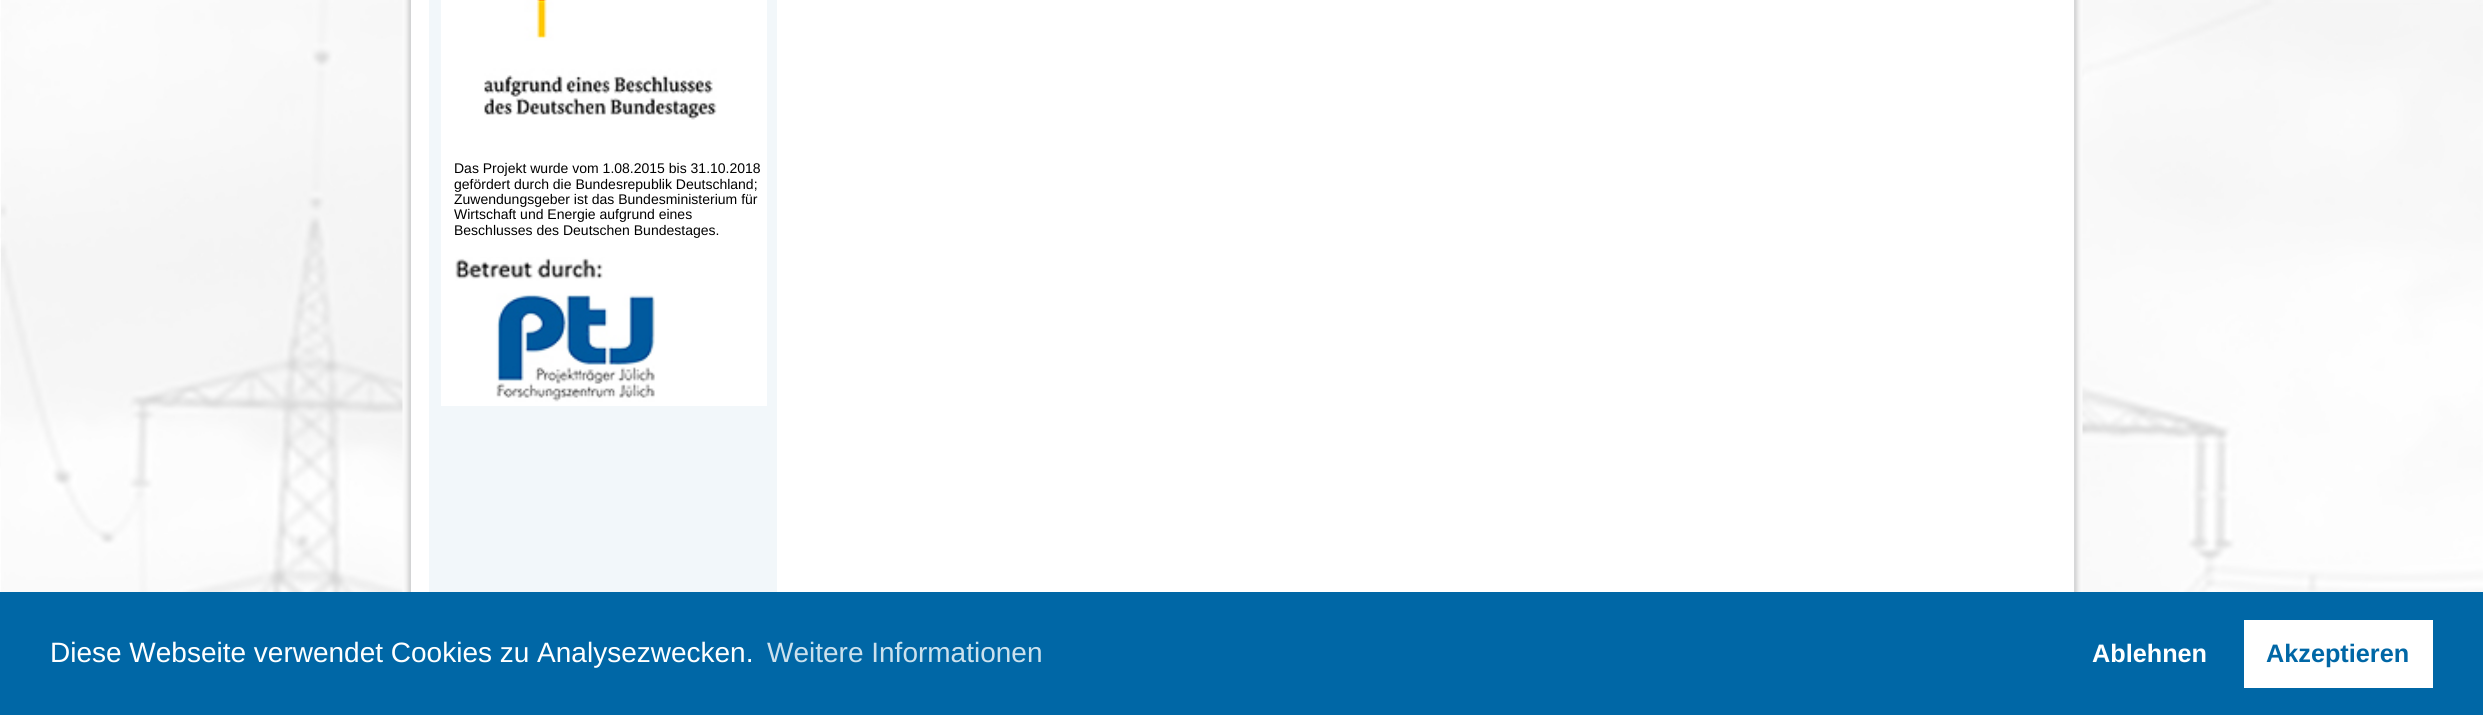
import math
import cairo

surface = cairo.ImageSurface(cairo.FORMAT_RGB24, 2483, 715)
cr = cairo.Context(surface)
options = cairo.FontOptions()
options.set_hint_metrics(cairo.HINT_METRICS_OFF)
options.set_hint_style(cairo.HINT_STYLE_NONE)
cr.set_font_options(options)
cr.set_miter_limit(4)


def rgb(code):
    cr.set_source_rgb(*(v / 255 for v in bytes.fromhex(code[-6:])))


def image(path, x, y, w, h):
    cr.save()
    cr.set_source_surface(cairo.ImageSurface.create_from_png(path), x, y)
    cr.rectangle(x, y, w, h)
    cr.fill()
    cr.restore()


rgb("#ffffff")
cr.paint()
image("img/1.png", 0, 0, 2483, 592)
image("img/2.png", 402, 0, 1681, 592)
for x, y, w, h, color in [
    (411, 0, 1663, 592, "#ffffff"),
    (429, 0, 348, 592, "#f2f7fa"),
    (441, 0, 326, 406, "#ffffff"),
]:
    rgb(color)
    cr.rectangle(x, y, w, h)
    cr.fill()
image("img/3.png", 484, 0, 233, 120)
image("img/4.png", 455, 257, 200, 145)
rgb("#0067a6")
cr.rectangle(0, 592, 2483, 123)
cr.fill()
rgb("#ffffff")
cr.rectangle(2244, 620, 189, 68)
cr.fill()
cr.select_font_face("Liberation Sans")
cr.set_font_size(14)
rgb("#000000")
for x, y, s in [
    (454, 173, "Das Projekt wurde vom 1.08.2015 bis 31.10.2018"),
    (454, 189, "gefördert durch die Bundesrepublik Deutschland;"),
    (454, 204, "Zuwendungsgeber ist das Bundesministerium für"),
    (454, 219, "Wirtschaft und Energie aufgrund eines"),
    (454, 235, "Beschlusses des Deutschen Bundestages."),
]:
    cr.move_to(x, y)
    cr.show_text(s)
cr.set_font_size(28)
rgb("#ffffff")
cr.move_to(50, 662)
cr.show_text("Diese Webseite verwendet Cookies zu Analysezwecken.")
rgb("#cce1ed")
cr.move_to(767, 662)
cr.show_text("Weitere Informationen")
cr.select_font_face("Liberation Sans", cairo.FONT_SLANT_NORMAL, cairo.FONT_WEIGHT_BOLD)
cr.set_font_size(25.25)
rgb("#ffffff")
cr.move_to(2092, 662)
cr.show_text("Ablehnen")
rgb("#0067a6")
cr.move_to(2266, 662)
cr.show_text("Akzeptieren")
surface.write_to_png("page.png")
